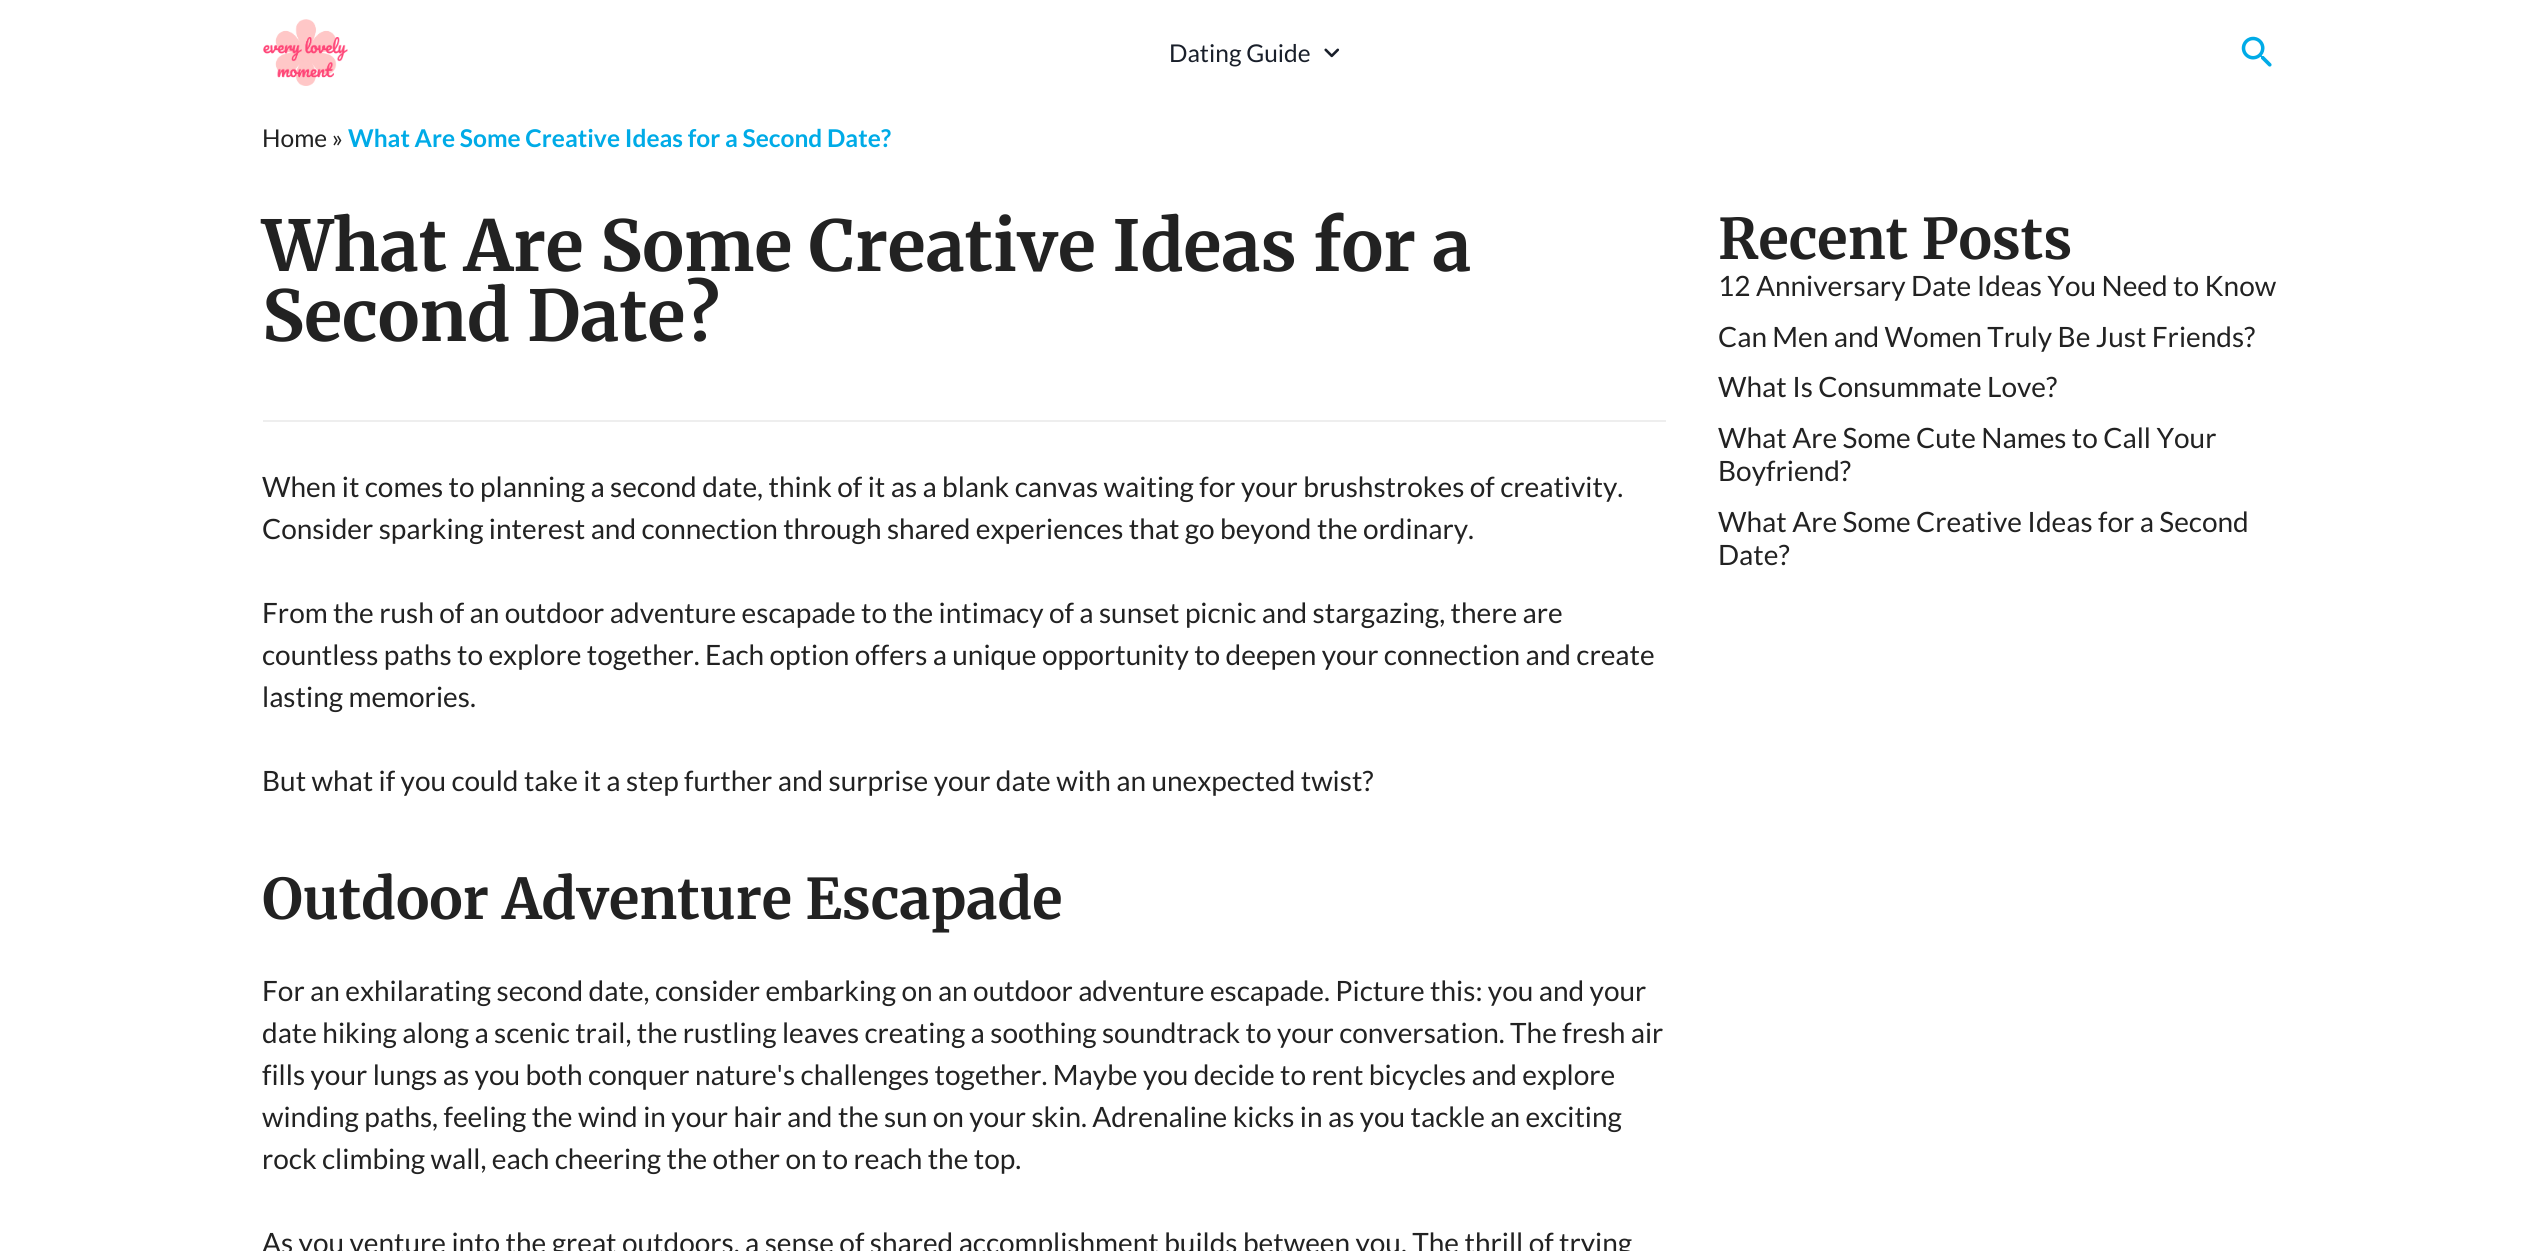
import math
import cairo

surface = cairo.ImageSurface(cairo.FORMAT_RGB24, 2538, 1251)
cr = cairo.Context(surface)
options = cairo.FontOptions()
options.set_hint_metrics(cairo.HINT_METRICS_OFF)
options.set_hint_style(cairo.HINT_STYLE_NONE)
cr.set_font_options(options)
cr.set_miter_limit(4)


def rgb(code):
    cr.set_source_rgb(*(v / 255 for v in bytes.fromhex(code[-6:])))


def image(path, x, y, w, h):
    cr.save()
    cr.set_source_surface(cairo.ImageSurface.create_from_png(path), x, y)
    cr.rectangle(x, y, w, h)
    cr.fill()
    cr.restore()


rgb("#ffffff")
cr.paint()
image("img/1.png", 263, 19, 85, 67)
image("img/2.png", 1324, 48, 16, 10)
image("img/3.png", 2241, 36, 31, 31)
rgb("#eeeeee")
cr.rectangle(263, 420, 1403, 2)
cr.fill()
cr.select_font_face("Lato")
cr.set_font_size(24.5)
rgb("#191f2a")
cr.move_to(1169, 62)
cr.show_text("Dating Guide")
rgb("#222222")
cr.move_to(262, 147)
cr.show_text("Home »")
cr.select_font_face("Lato", cairo.FONT_SLANT_NORMAL, cairo.FONT_WEIGHT_BOLD)
rgb("#00abe7")
cr.move_to(348, 147)
cr.show_text("What Are Some Creative Ideas for a Second Date?")
cr.select_font_face("Merriweather", cairo.FONT_SLANT_NORMAL, cairo.FONT_WEIGHT_BOLD)
cr.set_font_size(70)
rgb("#222222")
cr.move_to(262, 271)
cr.show_text("What Are Some Creative Ideas for a")
cr.move_to(262, 341)
cr.show_text("Second Date?")
cr.select_font_face("Lato")
cr.set_font_size(28)
for x, y, s in [
    (262, 497, "When it comes to planning a second date, think of it as a blank canvas waiting for your brushstrokes of creativity."),
    (262, 539, "Consider sparking interest and connection through shared experiences that go beyond the ordinary."),
    (262, 623, "From the rush of an outdoor adventure escapade to the intimacy of a sunset picnic and stargazing, there are"),
    (262, 665, "countless paths to explore together. Each option offers a unique opportunity to deepen your connection and create"),
    (262, 707, "lasting memories."),
    (262, 791, "But what if you could take it a step further and surprise your date with an unexpected twist?"),
]:
    cr.move_to(x, y)
    cr.show_text(s)
cr.select_font_face("Merriweather", cairo.FONT_SLANT_NORMAL, cairo.FONT_WEIGHT_BOLD)
cr.set_font_size(56)
cr.move_to(262, 919)
cr.show_text("Outdoor Adventure Escapade")
cr.select_font_face("Lato")
cr.set_font_size(28)
for x, y, s in [
    (262, 1001, "For an exhilarating second date, consider embarking on an outdoor adventure escapade. Picture this: you and your"),
    (262, 1043, "date hiking along a scenic trail, the rustling leaves creating a soothing soundtrack to your conversation. The fresh air"),
    (262, 1085, "fills your lungs as you both conquer nature's challenges together. Maybe you decide to rent bicycles and explore"),
    (262, 1127, "winding paths, feeling the wind in your hair and the sun on your skin. Adrenaline kicks in as you tackle an exciting"),
    (262, 1169, "rock climbing wall, each cheering the other on to reach the top."),
    (262, 1253, "As you venture into the great outdoors, a sense of shared accomplishment builds between you. The thrill of trying"),
]:
    cr.move_to(x, y)
    cr.show_text(s)
cr.select_font_face("Merriweather", cairo.FONT_SLANT_NORMAL, cairo.FONT_WEIGHT_BOLD)
cr.set_font_size(56)
cr.move_to(1718, 259)
cr.show_text("Recent Posts")
cr.select_font_face("Lato")
cr.set_font_size(28)
for x, y, s in [
    (1718, 296, "12 Anniversary Date Ideas You Need to Know"),
    (1718, 347, "Can Men and Women Truly Be Just Friends?"),
    (1718, 397, "What Is Consummate Love?"),
    (1718, 448, "What Are Some Cute Names to Call Your"),
    (1718, 481, "Boyfriend?"),
    (1718, 532, "What Are Some Creative Ideas for a Second"),
    (1718, 565, "Date?"),
]:
    cr.move_to(x, y)
    cr.show_text(s)
surface.write_to_png("page.png")
